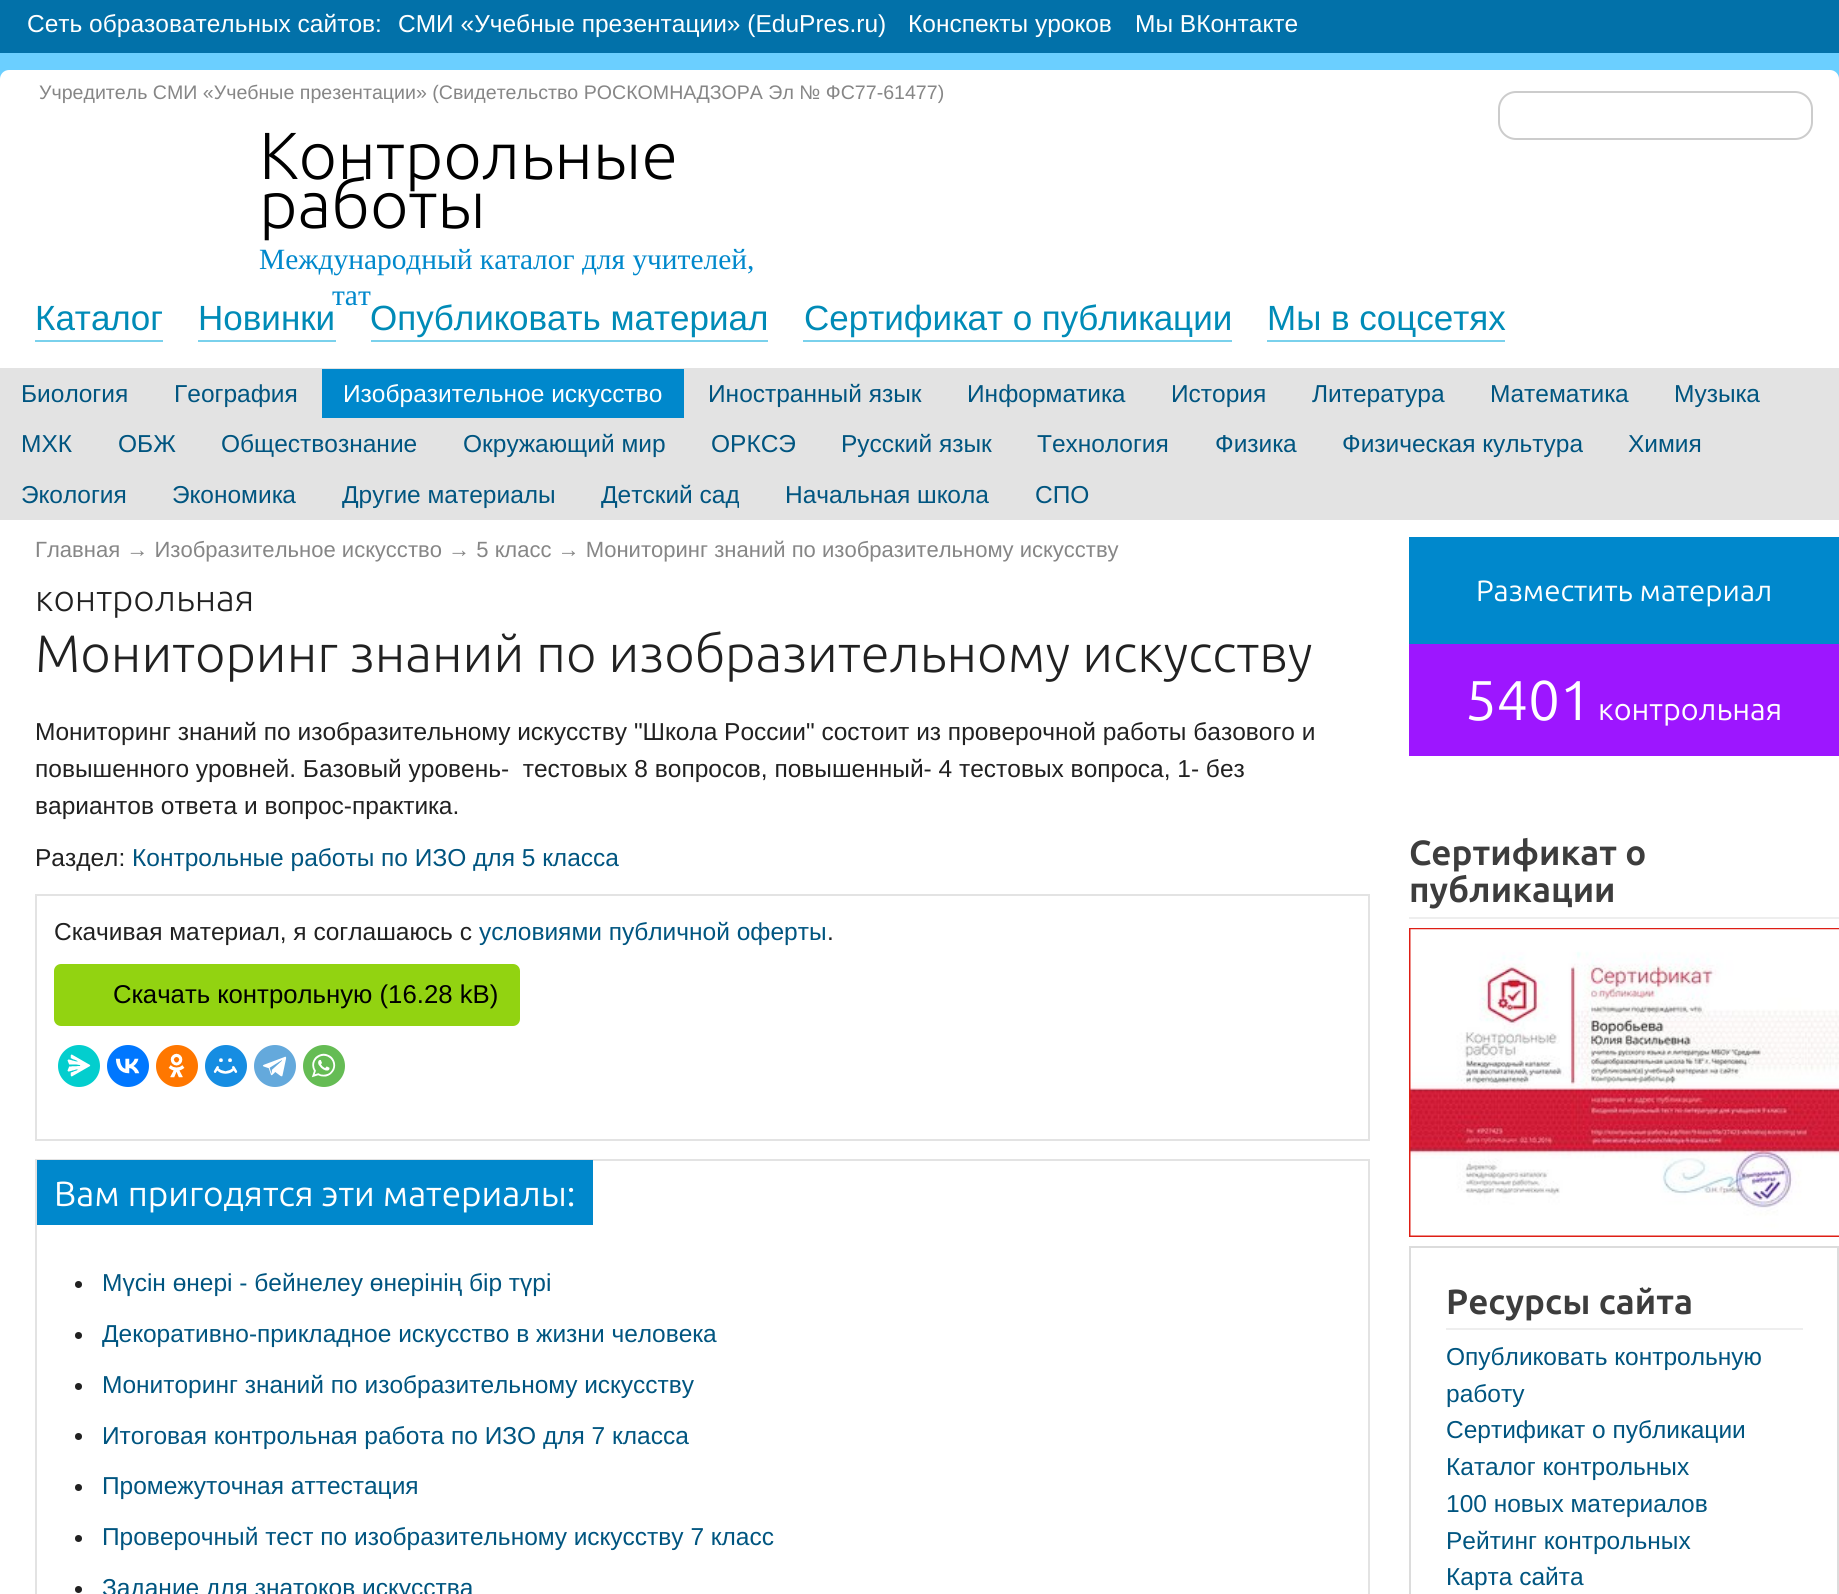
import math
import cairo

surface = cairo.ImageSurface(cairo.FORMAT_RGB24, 1839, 1594)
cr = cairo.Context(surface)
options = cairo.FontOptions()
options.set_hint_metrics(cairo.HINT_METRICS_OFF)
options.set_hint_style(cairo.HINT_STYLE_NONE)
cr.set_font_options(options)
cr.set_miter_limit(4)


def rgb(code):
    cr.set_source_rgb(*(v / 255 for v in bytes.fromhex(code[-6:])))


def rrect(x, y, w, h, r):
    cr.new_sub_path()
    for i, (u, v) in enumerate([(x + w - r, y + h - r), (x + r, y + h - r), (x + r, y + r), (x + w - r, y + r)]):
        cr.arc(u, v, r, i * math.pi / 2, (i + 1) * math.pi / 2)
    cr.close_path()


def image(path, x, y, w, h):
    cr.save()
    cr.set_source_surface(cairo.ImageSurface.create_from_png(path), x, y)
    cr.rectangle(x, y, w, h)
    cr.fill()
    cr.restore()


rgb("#6bcfff")
cr.paint()
rgb("#0271a9")
cr.rectangle(0, 0, 1839, 53)
cr.fill()
rgb("#ffffff")
rrect(0, 70, 1839, 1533, 9)
cr.fill()
rrect(1499, 92, 313, 47, 17)
rgb("#cccccc")
cr.stroke()
for x, y, w, h, color in [
    (35, 340, 128, 2, "#7ad1ec"),
    (198, 340, 138, 2, "#7ad1ec"),
    (371, 340, 397, 2, "#7ad1ec"),
    (803, 340, 429, 2, "#7ad1ec"),
    (1267, 340, 238, 2, "#7ad1ec"),
    (0, 368, 1839, 152, "#e3e3e3"),
    (322, 369, 362, 49, "#0088cc"),
]:
    rgb(color)
    cr.rectangle(x, y, w, h)
    cr.fill()
cr.rectangle(36, 895, 1333, 245)
rgb("#e3e3e3")
cr.stroke()
rgb("#92d311")
rrect(54, 964, 466, 62, 7)
cr.fill()
rgb("#03cece")
cr.arc(79, 1066, 21, 0, 2 * math.pi)
cr.fill()
image("img/1.png", 67, 1054, 24, 23)
rgb("#0077ff")
cr.arc(128, 1066, 21, 0, 2 * math.pi)
cr.fill()
image("img/2.png", 115, 1058, 25, 16)
rgb("#ff7700")
cr.arc(177, 1066, 21, 0, 2 * math.pi)
cr.fill()
image("img/3.png", 168, 1053, 17, 25)
rgb("#168de2")
cr.arc(226, 1066, 21, 0, 2 * math.pi)
cr.fill()
image("img/4.png", 213, 1058, 25, 16)
rgb("#64a9dc")
cr.arc(275, 1066, 21, 0, 2 * math.pi)
cr.fill()
image("img/5.png", 262, 1056, 25, 21)
rgb("#65bc54")
cr.arc(324, 1066, 21, 0, 2 * math.pi)
cr.fill()
image("img/6.png", 311, 1053, 25, 25)
cr.rectangle(36, 1160, 1333, 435)
rgb("#e3e3e3")
cr.stroke()
rgb("#0088cc")
cr.rectangle(37, 1160, 556, 65)
cr.fill()
rgb("#212121")
cr.arc(78.5, 1284.5, 3.5, 0, 2 * math.pi)
cr.fill()
cr.arc(78.5, 1335.5, 3.5, 0, 2 * math.pi)
cr.fill()
cr.arc(78.5, 1386.5, 3.5, 0, 2 * math.pi)
cr.fill()
cr.arc(78.5, 1436.5, 3.5, 0, 2 * math.pi)
cr.fill()
cr.arc(78.5, 1487.5, 3.5, 0, 2 * math.pi)
cr.fill()
cr.arc(78.5, 1538.5, 3.5, 0, 2 * math.pi)
cr.fill()
cr.arc(78.5, 1589.5, 3.5, 0, 2 * math.pi)
cr.fill()
for x, y, w, h, color in [
    (1409, 537, 430, 107, "#0088cc"),
    (1409, 644, 430, 112, "#9d16ff"),
    (1409, 917, 430, 2, "#eeeeee"),
]:
    rgb(color)
    cr.rectangle(x, y, w, h)
    cr.fill()
cr.rectangle(1410, 929, 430, 307)
rgb("#de1e15")
cr.stroke()
image("img/7.png", 1410, 929, 429, 307)
cr.rectangle(1410, 1247, 428, 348)
rgb("#dcdcdc")
cr.stroke()
rgb("#eeeeee")
cr.rectangle(1446, 1328, 357, 2)
cr.fill()
cr.select_font_face("Liberation Sans")
cr.set_font_size(24.5)
rgb("#ffffff")
for x, y, s in [
    (27, 32, "Сеть образовательных сайтов:"),
    (398, 32, "СМИ «Учебные презентации» (EduPres.ru)"),
    (908, 32, "Конспекты уроков"),
    (1135, 32, "Мы ВКонтакте"),
]:
    cr.move_to(x, y)
    cr.show_text(s)
cr.set_font_size(19.6)
rgb("#868686")
cr.move_to(39, 99)
cr.show_text("Учредитель СМИ «Учебные презентации» (Свидетельство РОСКОМНАДЗОРА Эл № ФС77-61477)")
cr.select_font_face("Ubuntu Light")
cr.set_font_size(66.5)
rgb("#000000")
cr.move_to(259, 179)
cr.show_text("Контрольные")
cr.move_to(259, 228)
cr.show_text("работы")
cr.select_font_face("Liberation Serif")
cr.set_font_size(29.4)
rgb("#0088cc")
cr.move_to(259, 269)
cr.show_text("Международный каталог для учителей,")
cr.move_to(332, 305)
cr.show_text("тат")
cr.select_font_face("Liberation Sans")
cr.set_font_size(35)
rgb("#008bb7")
cr.move_to(35, 330)
cr.show_text("Каталог")
rgb("#ffffff")
cr.rectangle(335, 304, 1, 1)
cr.fill()
rgb("#008bb7")
for x, y, s in [
    (198, 330, "Новинки"),
    (370, 330, "Опубликовать материал"),
    (804, 330, "Сертификат о публикации"),
    (1267, 330, "Мы в соцсетях"),
]:
    cr.move_to(x, y)
    cr.show_text(s)
cr.set_font_size(24.5)
rgb("#005580")
cr.move_to(21, 402)
cr.show_text("Биология")
cr.move_to(174, 402)
cr.show_text("География")
rgb("#ffffff")
cr.move_to(343, 402)
cr.show_text("Изобразительное искусство")
rgb("#005580")
for x, y, s in [
    (708, 402, "Иностранный язык"),
    (967, 402, "Информатика"),
    (1171, 402, "История"),
    (1312, 402, "Литература"),
    (1490, 402, "Математика"),
    (1674, 402, "Музыка"),
    (21, 452, "МХК"),
    (118, 452, "ОБЖ"),
    (221, 452, "Обществознание"),
    (463, 452, "Окружающий мир"),
    (711, 452, "ОРКСЭ"),
    (841, 452, "Русский язык"),
    (1037, 452, "Технология"),
    (1215, 452, "Физика"),
    (1342, 452, "Физическая культура"),
    (1628, 452, "Химия"),
    (21, 503, "Экология"),
    (172, 503, "Экономика"),
    (342, 503, "Другие материалы"),
    (601, 503, "Детский сад"),
    (785, 503, "Начальная школа"),
    (1035, 503, "СПО"),
]:
    cr.move_to(x, y)
    cr.show_text(s)
cr.set_font_size(22.05)
rgb("#868686")
cr.move_to(35, 557)
cr.show_text("Главная → Изобразительное искусство → 5 класс → Мониторинг знаний по изобразительному искусству")
cr.select_font_face("Ubuntu Light")
cr.set_font_size(36.75)
rgb("#212121")
cr.move_to(35, 611)
cr.show_text("контрольная")
cr.set_font_size(52.5)
cr.move_to(35, 672)
cr.show_text("Мониторинг знаний по изобразительному искусству")
cr.select_font_face("Liberation Sans")
cr.set_font_size(24.5)
for x, y, s in [
    (35, 740, "Мониторинг знаний по изобразительному искусству \"Школа России\" состоит из проверочной работы базового и"),
    (35, 777, "повышенного уровней. Базовый уровень-  тестовых 8 вопросов, повышенный- 4 тестовых вопроса, 1- без"),
    (35, 814, "вариантов ответа и вопрос-практика."),
    (35, 866, "Раздел:"),
]:
    cr.move_to(x, y)
    cr.show_text(s)
rgb("#005580")
cr.move_to(132, 866)
cr.show_text("Контрольные работы по ИЗО для 5 класса")
rgb("#212121")
cr.move_to(54, 940)
cr.show_text("Скачивая материал, я соглашаюсь с")
rgb("#005580")
cr.move_to(479, 940)
cr.show_text("условиями публичной оферты")
rgb("#212121")
cr.move_to(827, 940)
cr.show_text(".")
cr.set_font_size(25.75)
rgb("#000000")
cr.move_to(113, 1003)
cr.show_text("Скачать контрольную (16.28 kB)")
cr.select_font_face("Ubuntu")
cr.set_font_size(35)
rgb("#ffffff")
cr.move_to(54, 1206)
cr.show_text("Вам пригодятся эти материалы:")
cr.select_font_face("Liberation Sans")
cr.set_font_size(24.5)
rgb("#005580")
for x, y, s in [
    (102, 1291, "Мүсін өнері - бейнелеу өнерінің бір түрі"),
    (102, 1342, "Декоративно-прикладное искусство в жизни человека"),
    (102, 1393, "Мониторинг знаний по изобразительному искусству"),
    (102, 1444, "Итоговая контрольная работа по ИЗО для 7 класса"),
    (102, 1494, "Промежуточная аттестация"),
    (102, 1545, "Проверочный тест по изобразительному искусству 7 класс"),
    (102, 1596, "Задание для знатоков искусства"),
]:
    cr.move_to(x, y)
    cr.show_text(s)
cr.select_font_face("Ubuntu")
cr.set_font_size(29.4)
rgb("#ffffff")
cr.move_to(1476, 601)
cr.show_text("Разместить материал")
cr.set_font_size(56)
cr.move_to(1465, 720)
cr.show_text("5401")
cr.set_font_size(30.5)
cr.move_to(1598, 720)
cr.show_text("контрольная")
cr.select_font_face("Ubuntu", cairo.FONT_SLANT_NORMAL, cairo.FONT_WEIGHT_BOLD)
cr.set_font_size(35)
rgb("#3d3d3d")
for x, y, s in [
    (1409, 865, "Сертификат о"),
    (1409, 902, "публикации"),
    (1446, 1314, "Ресурсы сайта"),
]:
    cr.move_to(x, y)
    cr.show_text(s)
cr.select_font_face("Liberation Sans")
cr.set_font_size(24.5)
rgb("#005580")
for x, y, s in [
    (1446, 1365, "Опубликовать контрольную"),
    (1446, 1402, "работу"),
    (1446, 1438, "Сертификат о публикации"),
    (1446, 1475, "Каталог контрольных"),
    (1446, 1512, "100 новых материалов"),
    (1446, 1549, "Рейтинг контрольных"),
    (1446, 1585, "Карта сайта"),
]:
    cr.move_to(x, y)
    cr.show_text(s)
surface.write_to_png("page.png")
